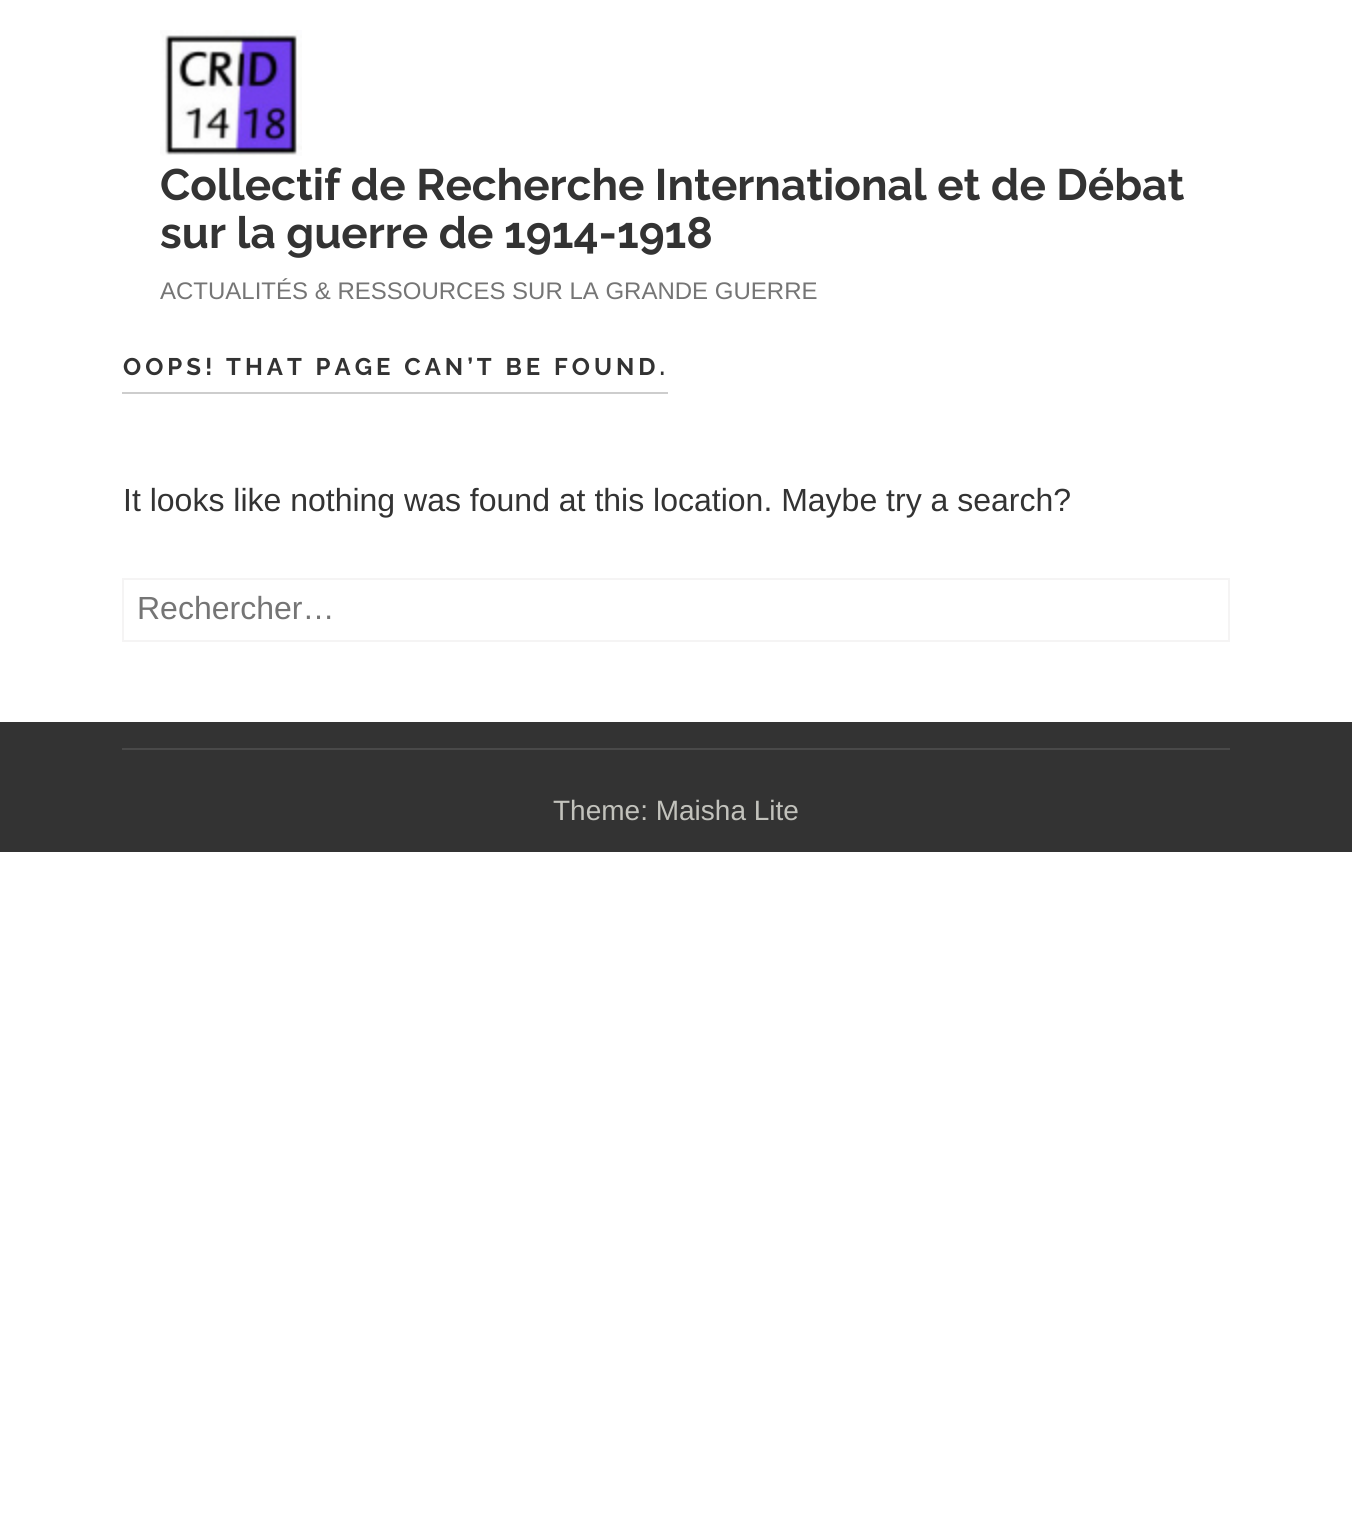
import math
import cairo

surface = cairo.ImageSurface(cairo.FORMAT_RGB24, 1352, 1523)
cr = cairo.Context(surface)
options = cairo.FontOptions()
options.set_hint_metrics(cairo.HINT_METRICS_OFF)
options.set_hint_style(cairo.HINT_STYLE_NONE)
cr.set_font_options(options)
cr.set_miter_limit(4)


def rgb(code):
    cr.set_source_rgb(*(v / 255 for v in bytes.fromhex(code[-6:])))


def tracked(x, y, s, letter, word):
    cr.move_to(x, y)
    for ch in s:
        cr.show_text(ch)
        cr.rel_move_to(letter + word * (ch == ' '), 0)


def image(path, x, y, w, h):
    cr.save()
    cr.set_source_surface(cairo.ImageSurface.create_from_png(path), x, y)
    cr.rectangle(x, y, w, h)
    cr.fill()
    cr.restore()


rgb("#ffffff")
cr.paint()
image("img/1.png", 160, 30, 142, 126)
rgb("#cdcdcd")
cr.rectangle(122, 392, 546, 2)
cr.fill()
cr.rectangle(123, 579, 1106, 62)
rgb("#f5f4f4")
cr.stroke()
rgb("#333333")
cr.rectangle(0, 722, 1352, 130)
cr.fill()
rgb("#494949")
cr.rectangle(122, 748, 1108, 2)
cr.fill()
cr.select_font_face("Raleway", cairo.FONT_SLANT_NORMAL, cairo.FONT_WEIGHT_BOLD)
cr.set_font_size(44)
rgb("#333333")
cr.move_to(160, 200)
cr.show_text("Collectif de Recherche International et de Débat")
cr.move_to(160, 248)
cr.show_text("sur la guerre de 1914-1918")
cr.select_font_face("Liberation Sans")
cr.set_font_size(24)
rgb("#757575")
cr.move_to(160, 299)
cr.show_text("ACTUALITÉS & RESSOURCES SUR LA GRANDE GUERRE")
cr.select_font_face("Raleway", cairo.FONT_SLANT_NORMAL, cairo.FONT_WEIGHT_BOLD)
rgb("#333333")
tracked(123, 375, "OOPS! THAT PAGE CAN’T BE FOUND.", 4, 0)
cr.select_font_face("Liberation Sans")
cr.set_font_size(32)
cr.move_to(123, 511)
cr.show_text("It looks like nothing was found at this location. Maybe try a search?")
rgb("#757575")
cr.move_to(137, 619)
cr.show_text("Rechercher…")
cr.set_font_size(28)
rgb("#c2c2bc")
cr.move_to(553, 820)
cr.show_text("Theme: Maisha Lite")
surface.write_to_png("page.png")
